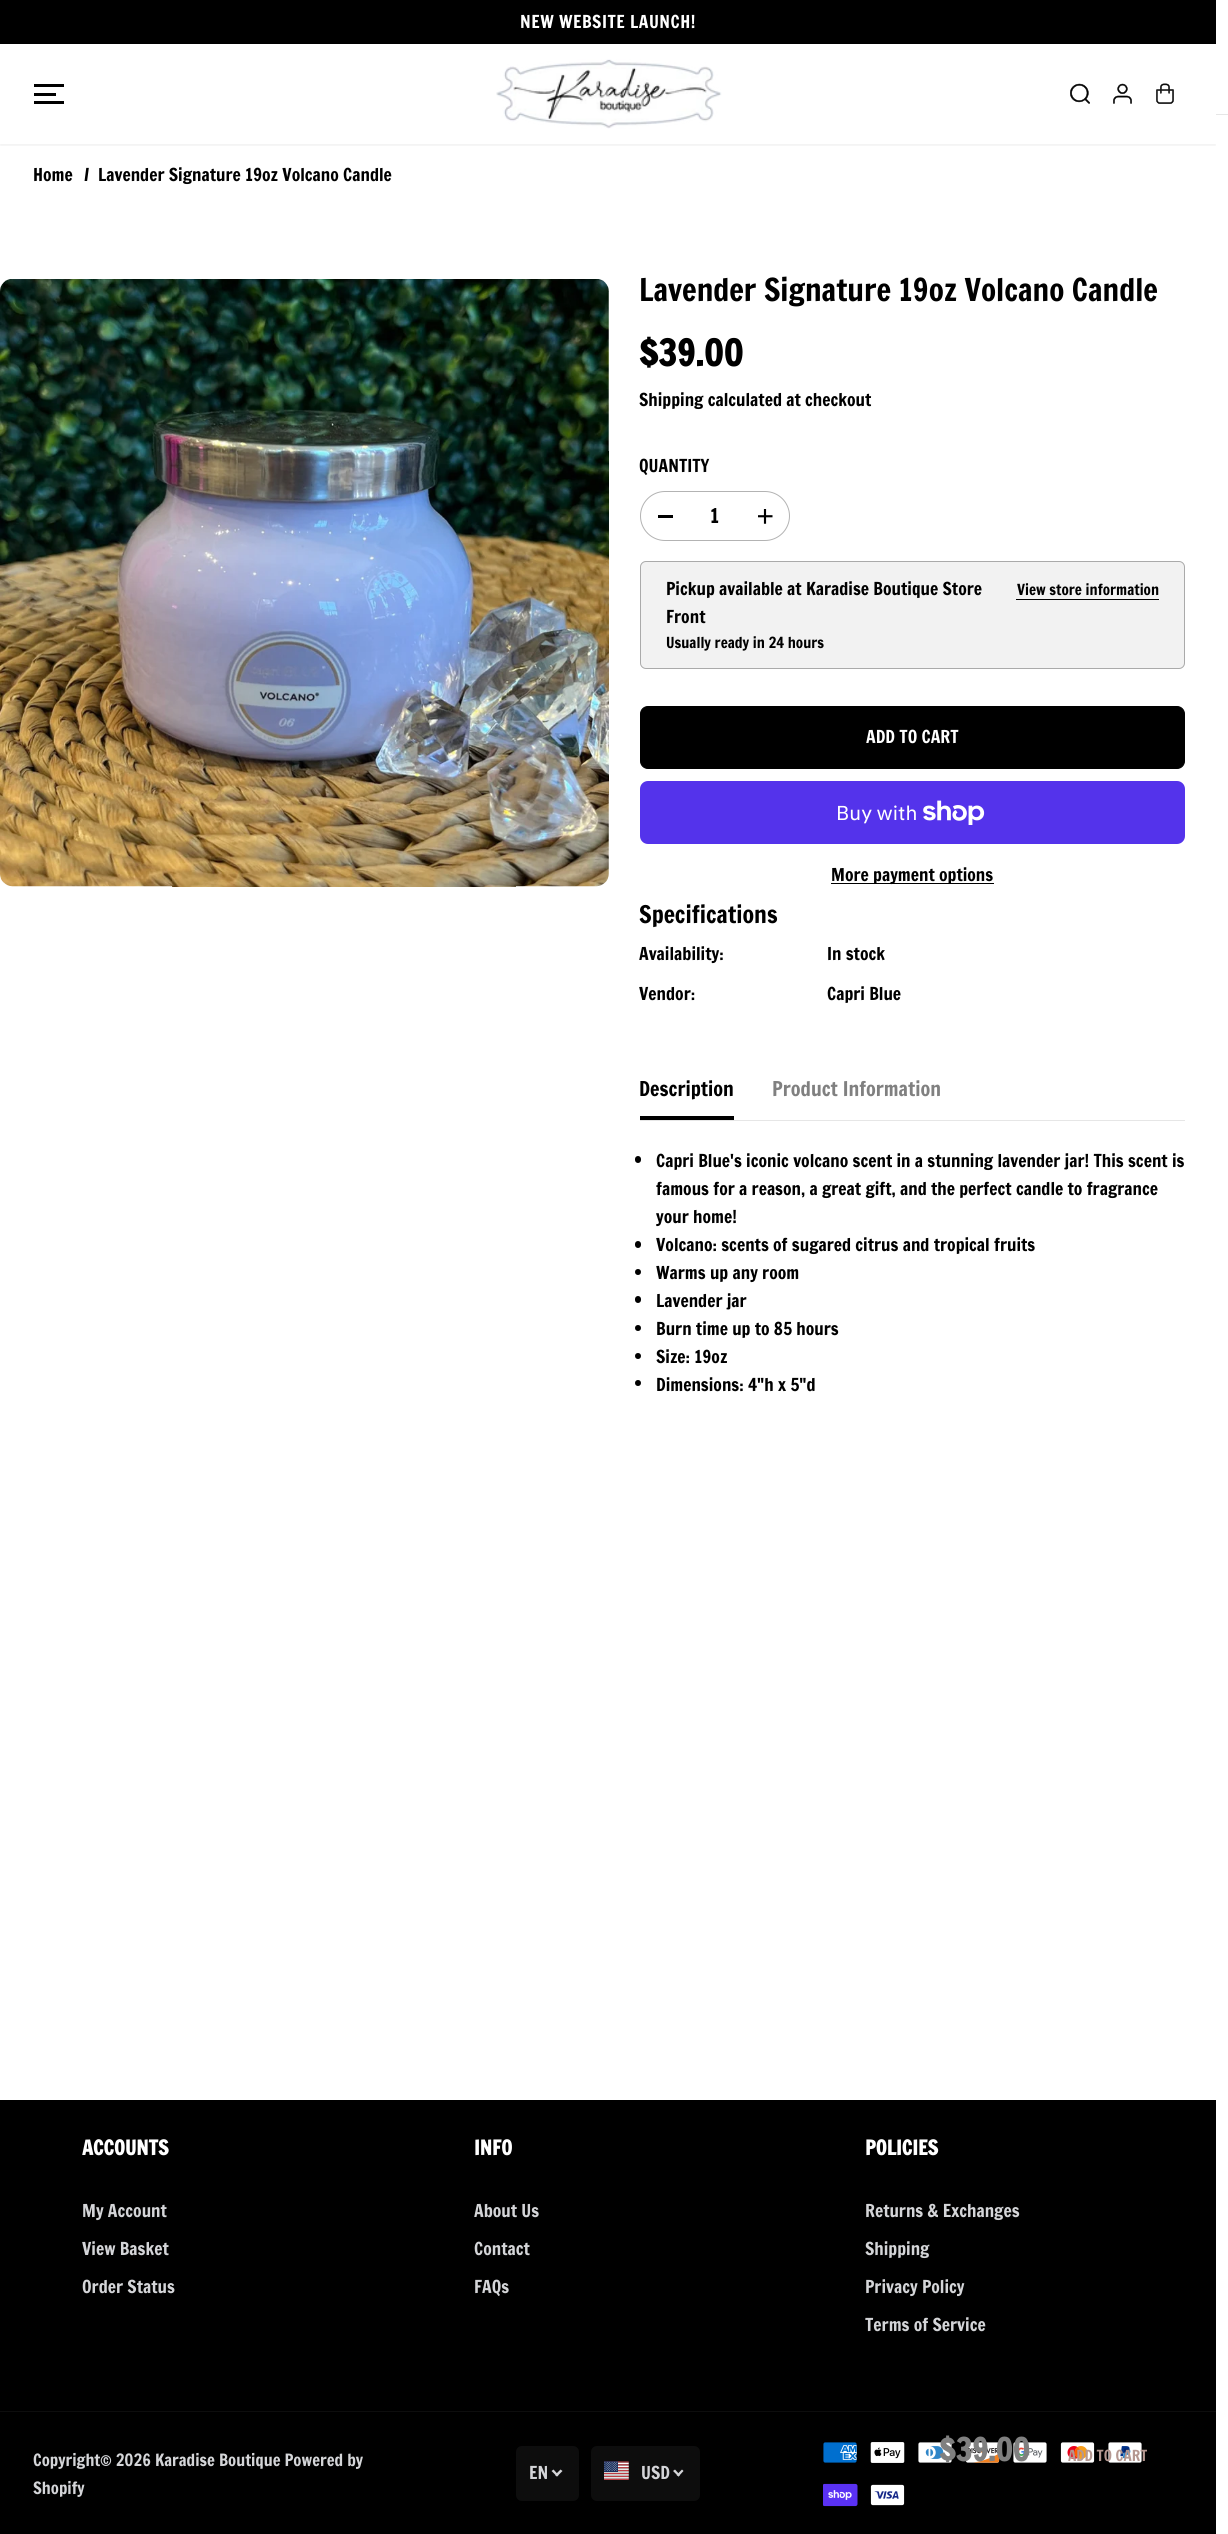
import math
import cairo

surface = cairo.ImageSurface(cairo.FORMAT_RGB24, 1228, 2534)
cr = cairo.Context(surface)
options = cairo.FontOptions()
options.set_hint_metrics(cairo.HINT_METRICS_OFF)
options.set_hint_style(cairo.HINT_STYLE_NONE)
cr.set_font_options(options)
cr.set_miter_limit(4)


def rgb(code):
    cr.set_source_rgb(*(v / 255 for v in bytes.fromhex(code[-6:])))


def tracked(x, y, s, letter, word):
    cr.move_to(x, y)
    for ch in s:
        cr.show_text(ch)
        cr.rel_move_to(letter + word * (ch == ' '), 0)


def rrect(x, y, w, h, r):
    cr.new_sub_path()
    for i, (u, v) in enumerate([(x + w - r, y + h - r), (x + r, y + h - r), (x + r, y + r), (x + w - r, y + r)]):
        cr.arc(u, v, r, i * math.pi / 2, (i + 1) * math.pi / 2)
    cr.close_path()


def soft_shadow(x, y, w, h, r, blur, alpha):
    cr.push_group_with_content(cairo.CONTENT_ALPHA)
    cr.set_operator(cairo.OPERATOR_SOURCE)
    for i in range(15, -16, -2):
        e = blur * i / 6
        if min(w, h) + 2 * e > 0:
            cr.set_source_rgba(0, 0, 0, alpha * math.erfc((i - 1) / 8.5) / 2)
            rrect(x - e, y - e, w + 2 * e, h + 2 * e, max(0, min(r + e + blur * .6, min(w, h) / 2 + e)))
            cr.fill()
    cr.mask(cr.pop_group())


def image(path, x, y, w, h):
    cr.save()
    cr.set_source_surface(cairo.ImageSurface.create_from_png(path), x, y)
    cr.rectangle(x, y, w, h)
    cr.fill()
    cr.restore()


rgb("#ffffff")
cr.paint()
rgb("#000000")
cr.rectangle(0, 0, 1216, 44)
cr.fill()
cr.save()
cr.rectangle(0, 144, 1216, 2)
cr.clip()
rgb("#000000")
soft_shadow(0, 46, 1216, 100, 0, 1, 0.05)
cr.restore()
for x, y, w, h, color in [
    (34, 93, 22, 3, "#000000"),
    (34, 84, 30, 3, "#000000"),
    (34, 101, 30, 3, "#000000"),
]:
    rgb(color)
    cr.rectangle(x, y, w, h)
    cr.fill()
image("img/1.png", 496, 59, 226, 70)
image("img/2.png", 1070, 83, 20, 21)
image("img/3.png", 1113, 83, 19, 21)
image("img/4.png", 1156, 83, 18, 21)
rgb("#ffffff")
cr.rectangle(1216, 47, 1, 99)
cr.fill()
rgb("#e6e6e6")
cr.rectangle(1216, 114, 12, 1)
cr.fill()
image("img/5.png", 0, 279, 609, 608)
rrect(640.5, 491.5, 149, 49, 24.5)
rgb("#b3b3b3")
cr.set_line_width(1)
cr.stroke()
rgb("#000000")
cr.rectangle(658, 515, 15, 3)
cr.fill()
image("img/6.png", 758, 509, 15, 15)
rgb("#f2f2f2")
rrect(640, 561, 545, 108, 6)
cr.fill()
rrect(640.5, 561.5, 544, 107, 5.5)
cr.set_source_rgba(0, 0, 0, 0.3)
cr.stroke()
rgb("#000000")
cr.rectangle(1016, 599, 143, 1)
cr.fill()
rrect(640.5, 706.5, 544, 62, 7.5)
cr.fill_preserve()
cr.stroke()
rgb("#5433eb")
rrect(640, 781, 545, 63, 8)
cr.fill()
image("img/7.png", 923, 800, 62, 25)
for x, y, w, h, color in [
    (831, 883, 163, 1, "#000000"),
    (640, 1120, 545, 1, "#e6e6e6"),
    (640, 1116, 94, 4, "#000000"),
]:
    rgb(color)
    cr.rectangle(x, y, w, h)
    cr.fill()
rrect(635, 1156, 6, 7, 3)
cr.fill()
rrect(635, 1241, 6, 7, 3)
cr.fill()
cr.arc(638, 1272, 3, 0, 2 * math.pi)
cr.fill()
rrect(635, 1296, 6, 7, 3)
cr.fill()
cr.arc(638, 1328, 3, 0, 2 * math.pi)
cr.fill()
cr.arc(638, 1356, 3, 0, 2 * math.pi)
cr.fill()
cr.arc(638, 1383, 3, 0, 2 * math.pi)
cr.fill()
cr.rectangle(0, 2100, 1216, 434)
cr.fill()
rgb("#0d0d0d")
cr.rectangle(0, 2411, 1216, 1)
cr.fill()
rrect(516, 2446, 63, 55, 6)
cr.fill()
rgb("#d4d5d8")
cr.new_path()
cr.move_to(560.5, 2469.5)
cr.line_to(562.5, 2471)
cr.line_to(557, 2476.5)
cr.line_to(555, 2475)
cr.close_path()
cr.fill()
cr.new_path()
cr.move_to(553.5, 2469.5)
cr.line_to(558.5, 2475)
cr.line_to(557, 2476.5)
cr.line_to(551.5, 2471)
cr.close_path()
cr.fill()
rgb("#0d0d0d")
rrect(591, 2446, 109, 55, 6)
cr.fill()
image("img/8.png", 604, 2461, 25, 19)
rgb("#d4d5d8")
cr.new_path()
cr.move_to(682, 2469.5)
cr.line_to(683.5, 2471)
cr.line_to(678.5, 2476.5)
cr.line_to(676.5, 2475)
cr.close_path()
cr.fill()
cr.new_path()
cr.move_to(675, 2469.5)
cr.line_to(680, 2475)
cr.line_to(678.5, 2476.5)
cr.line_to(673, 2471)
cr.close_path()
cr.fill()
image("img/9.png", 823, 2442, 34, 21)
image("img/10.png", 870, 2442, 35, 21)
image("img/11.png", 918, 2442, 34, 21)
image("img/12.png", 965, 2442, 35, 21)
image("img/13.png", 1013, 2442, 34, 21)
image("img/14.png", 1060, 2442, 35, 21)
image("img/15.png", 1108, 2442, 34, 21)
image("img/16.png", 823, 2483, 35, 24)
image("img/17.png", 870, 2484, 35, 22)
cr.select_font_face("Francois One")
cr.set_font_size(17.5)
rgb("#ffffff")
tracked(520, 28, "NEW WEBSITE LAUNCH!", 0.5, 0)
rgb("#000000")
for x, y, s in [
    (33, 181, "Home"),
    (84, 181, "/"),
    (98, 181, "Lavender Signature 19oz Volcano Candle"),
]:
    cr.move_to(x, y)
    cr.show_text(s)
cr.set_font_size(30.9)
cr.move_to(639, 301)
cr.show_text("Lavender Signature 19oz Volcano Candle")
cr.select_font_face("Francois One", cairo.FONT_SLANT_NORMAL, cairo.FONT_WEIGHT_BOLD)
cr.set_font_size(35.5)
cr.move_to(639, 366)
cr.show_text("$39.00")
cr.select_font_face("Francois One")
cr.set_font_size(17.5)
cr.move_to(639, 406)
cr.show_text("Shipping calculated at checkout")
cr.move_to(639, 472)
cr.show_text("QUANTITY")
cr.set_font_size(20)
cr.move_to(710, 523)
cr.show_text("1")
cr.set_font_size(17.5)
cr.move_to(666, 595)
cr.show_text("Pickup available at Karadise Boutique Store")
cr.move_to(666, 623)
cr.show_text("Front")
cr.set_font_size(15)
cr.move_to(666, 648)
cr.show_text("Usually ready in 24 hours")
cr.move_to(1017, 595)
cr.show_text("View store information")
cr.set_font_size(17.5)
rgb("#ffffff")
cr.move_to(866, 743)
cr.show_text("ADD TO CART")
cr.select_font_face("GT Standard")
cr.set_font_size(20)
cr.move_to(836, 820)
cr.show_text("Buy with")
cr.select_font_face("Francois One")
cr.set_font_size(17.5)
rgb("#000000")
cr.move_to(831, 881)
cr.show_text("More payment options")
cr.set_font_size(23.75)
cr.move_to(639, 923)
cr.show_text("Specifications")
cr.set_font_size(17.5)
for x, y, s in [
    (639, 960, "Availability:"),
    (827, 960, "In stock"),
    (639, 1000, "Vendor:"),
    (827, 1000, "Capri Blue"),
]:
    cr.move_to(x, y)
    cr.show_text(s)
cr.set_font_size(20)
cr.move_to(639, 1096)
cr.show_text("Description")
rgb("#808080")
cr.move_to(772, 1096)
cr.show_text("Product Information")
cr.set_font_size(17.5)
rgb("#000000")
for x, y, s in [
    (656, 1167, "Capri Blue's iconic volcano scent in a stunning lavender jar! This scent is"),
    (656, 1195, "famous for a reason, a great gift, and the perfect candle to fragrance"),
    (656, 1223, "your home!"),
    (656, 1251, "Volcano: scents of sugared citrus and tropical fruits"),
    (656, 1279, "Warms up any room"),
    (656, 1307, "Lavender jar"),
    (656, 1335, "Burn time up to 85 hours"),
    (656, 1363, "Size: 19oz"),
    (656, 1391, "Dimensions: 4\"h x 5\"d"),
]:
    cr.move_to(x, y)
    cr.show_text(s)
cr.select_font_face("Francois One", cairo.FONT_SLANT_NORMAL, cairo.FONT_WEIGHT_BOLD)
cr.set_font_size(30.9)
rgb("#808080")
cr.move_to(939, 2461)
cr.show_text("$39.00")
cr.select_font_face("Francois One")
cr.set_font_size(15)
rgb("#b59891")
cr.move_to(1068, 2461)
cr.show_text("ADD TO CART")
cr.select_font_face("Francois One", cairo.FONT_SLANT_NORMAL, cairo.FONT_WEIGHT_BOLD)
cr.set_font_size(20)
rgb("#ffffff")
cr.move_to(82, 2155)
cr.show_text("ACCOUNTS")
cr.select_font_face("Francois One")
cr.set_font_size(17.5)
rgb("#d4d5d8")
for x, y, s in [
    (82, 2217, "My Account"),
    (82, 2255, "View Basket"),
    (82, 2293, "Order Status"),
]:
    cr.move_to(x, y)
    cr.show_text(s)
cr.select_font_face("Francois One", cairo.FONT_SLANT_NORMAL, cairo.FONT_WEIGHT_BOLD)
cr.set_font_size(20)
rgb("#ffffff")
cr.move_to(474, 2155)
cr.show_text("INFO")
cr.select_font_face("Francois One")
cr.set_font_size(17.5)
rgb("#d4d5d8")
for x, y, s in [
    (474, 2217, "About Us"),
    (474, 2255, "Contact"),
    (474, 2293, "FAQs"),
]:
    cr.move_to(x, y)
    cr.show_text(s)
cr.select_font_face("Francois One", cairo.FONT_SLANT_NORMAL, cairo.FONT_WEIGHT_BOLD)
cr.set_font_size(20)
rgb("#ffffff")
cr.move_to(865, 2155)
cr.show_text("POLICIES")
cr.select_font_face("Francois One")
cr.set_font_size(17.5)
rgb("#d4d5d8")
for x, y, s in [
    (865, 2217, "Returns & Exchanges"),
    (865, 2255, "Shipping"),
    (865, 2293, "Privacy Policy"),
    (865, 2331, "Terms of Service"),
]:
    cr.move_to(x, y)
    cr.show_text(s)
cr.set_font_size(16.6)
cr.move_to(33, 2466)
cr.show_text("Copyright© 2026 Karadise Boutique Powered by")
cr.move_to(33, 2494)
cr.show_text("Shopify")
cr.set_font_size(17.5)
cr.move_to(529, 2479)
cr.show_text("EN")
cr.move_to(641, 2479)
cr.show_text("USD")
surface.write_to_png("page.png")
